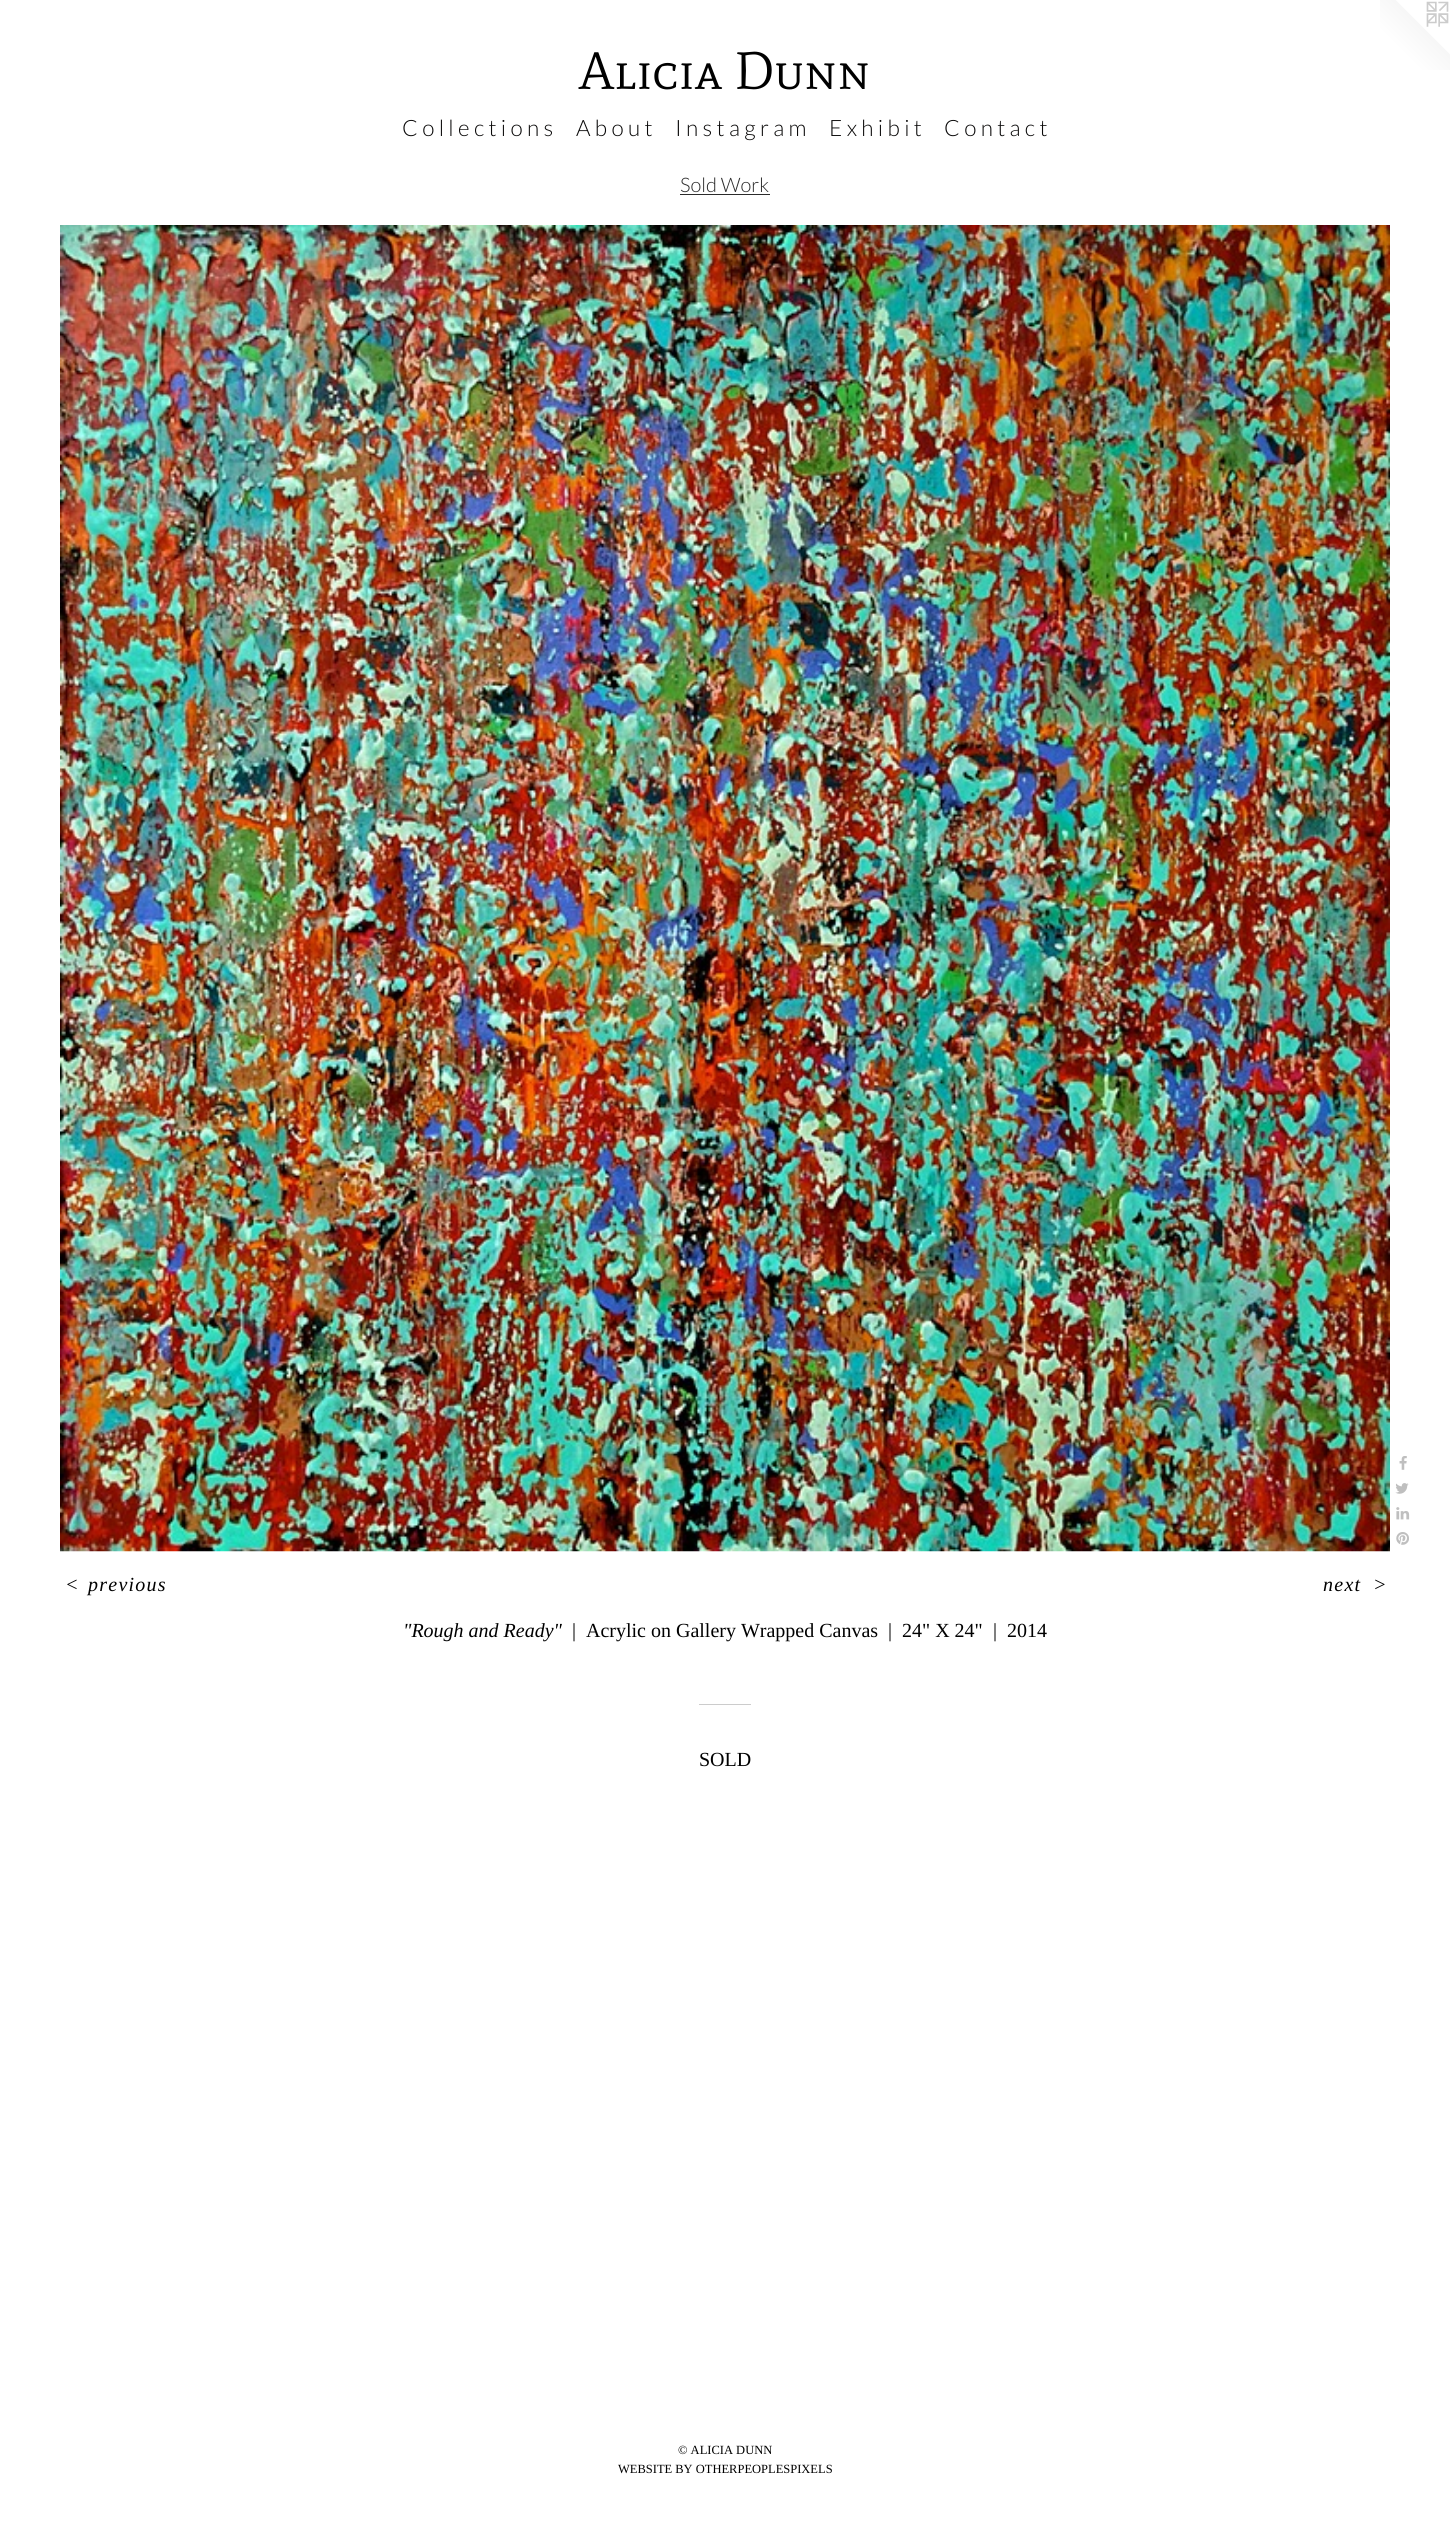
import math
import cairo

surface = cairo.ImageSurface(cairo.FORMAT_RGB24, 1450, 2544)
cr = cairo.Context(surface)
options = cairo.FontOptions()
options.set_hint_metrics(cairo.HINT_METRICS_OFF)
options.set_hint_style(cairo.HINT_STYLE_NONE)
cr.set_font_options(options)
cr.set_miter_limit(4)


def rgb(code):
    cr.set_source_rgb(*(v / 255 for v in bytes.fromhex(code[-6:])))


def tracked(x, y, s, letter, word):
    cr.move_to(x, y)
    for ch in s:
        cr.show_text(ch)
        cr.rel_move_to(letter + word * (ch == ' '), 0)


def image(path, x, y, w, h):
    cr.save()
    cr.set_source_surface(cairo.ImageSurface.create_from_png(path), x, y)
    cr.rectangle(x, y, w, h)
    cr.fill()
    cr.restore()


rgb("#ffffff")
cr.paint()
image("img/1.png", 1380, 0, 70, 70)
rgb("#2b2b2b")
cr.rectangle(680, 194, 90, 1)
cr.fill()
image("img/2.png", 60, 225, 1330, 1327)
image("img/3.png", 1399, 1456, 8, 14)
image("img/4.png", 1395, 1483, 14, 11)
image("img/5.png", 1396, 1507, 14, 13)
image("img/6.png", 1396, 1532, 13, 13)
rgb("#cccccc")
cr.rectangle(699, 1704, 52, 1)
cr.fill()
cr.select_font_face("Mate SC")
cr.set_font_size(52.5)
rgb("#000000")
cr.move_to(579, 89)
cr.show_text("Alicia Dunn")
cr.select_font_face("Lato Light")
cr.set_font_size(22.5)
rgb("#0a0909")
for x, y, s in [
    (402, 136, "C o l l e c t i o n s"),
    (576, 136, "A b o u t"),
    (675, 136, "I n s t a g r a m"),
    (829, 136, "E x h i b i t"),
    (944, 136, "C o n t a c t"),
]:
    cr.move_to(x, y)
    cr.show_text(s)
cr.set_font_size(20)
rgb("#2b2b2b")
cr.move_to(680, 192)
cr.show_text("Sold Work")
cr.select_font_face("Liberation Serif", cairo.FONT_SLANT_ITALIC)
rgb("#000000")
for x, y, s in [
    (65, 1591, "<"),
    (88, 1591, "previous"),
    (1323, 1591, "next"),
    (1373, 1591, ">"),
]:
    tracked(x, y, s, 1.25, 0)
cr.move_to(403, 1637)
cr.show_text("\"Rough and Ready\"")
cr.select_font_face("Liberation Serif")
for x, y, s in [
    (572, 1637, "|"),
    (586, 1637, "Acrylic on Gallery Wrapped Canvas"),
    (888, 1637, "|"),
    (902, 1637, "24\" X 24\""),
    (993, 1637, "|"),
    (1007, 1637, "2014"),
    (699, 1766, "SOLD"),
]:
    cr.move_to(x, y)
    cr.show_text(s)
cr.set_font_size(12.5)
cr.move_to(678, 2454)
cr.show_text("© ALICIA DUNN")
cr.move_to(618, 2473)
cr.show_text("WEBSITE BY OTHERPEOPLESPIXELS")
surface.write_to_png("page.png")
